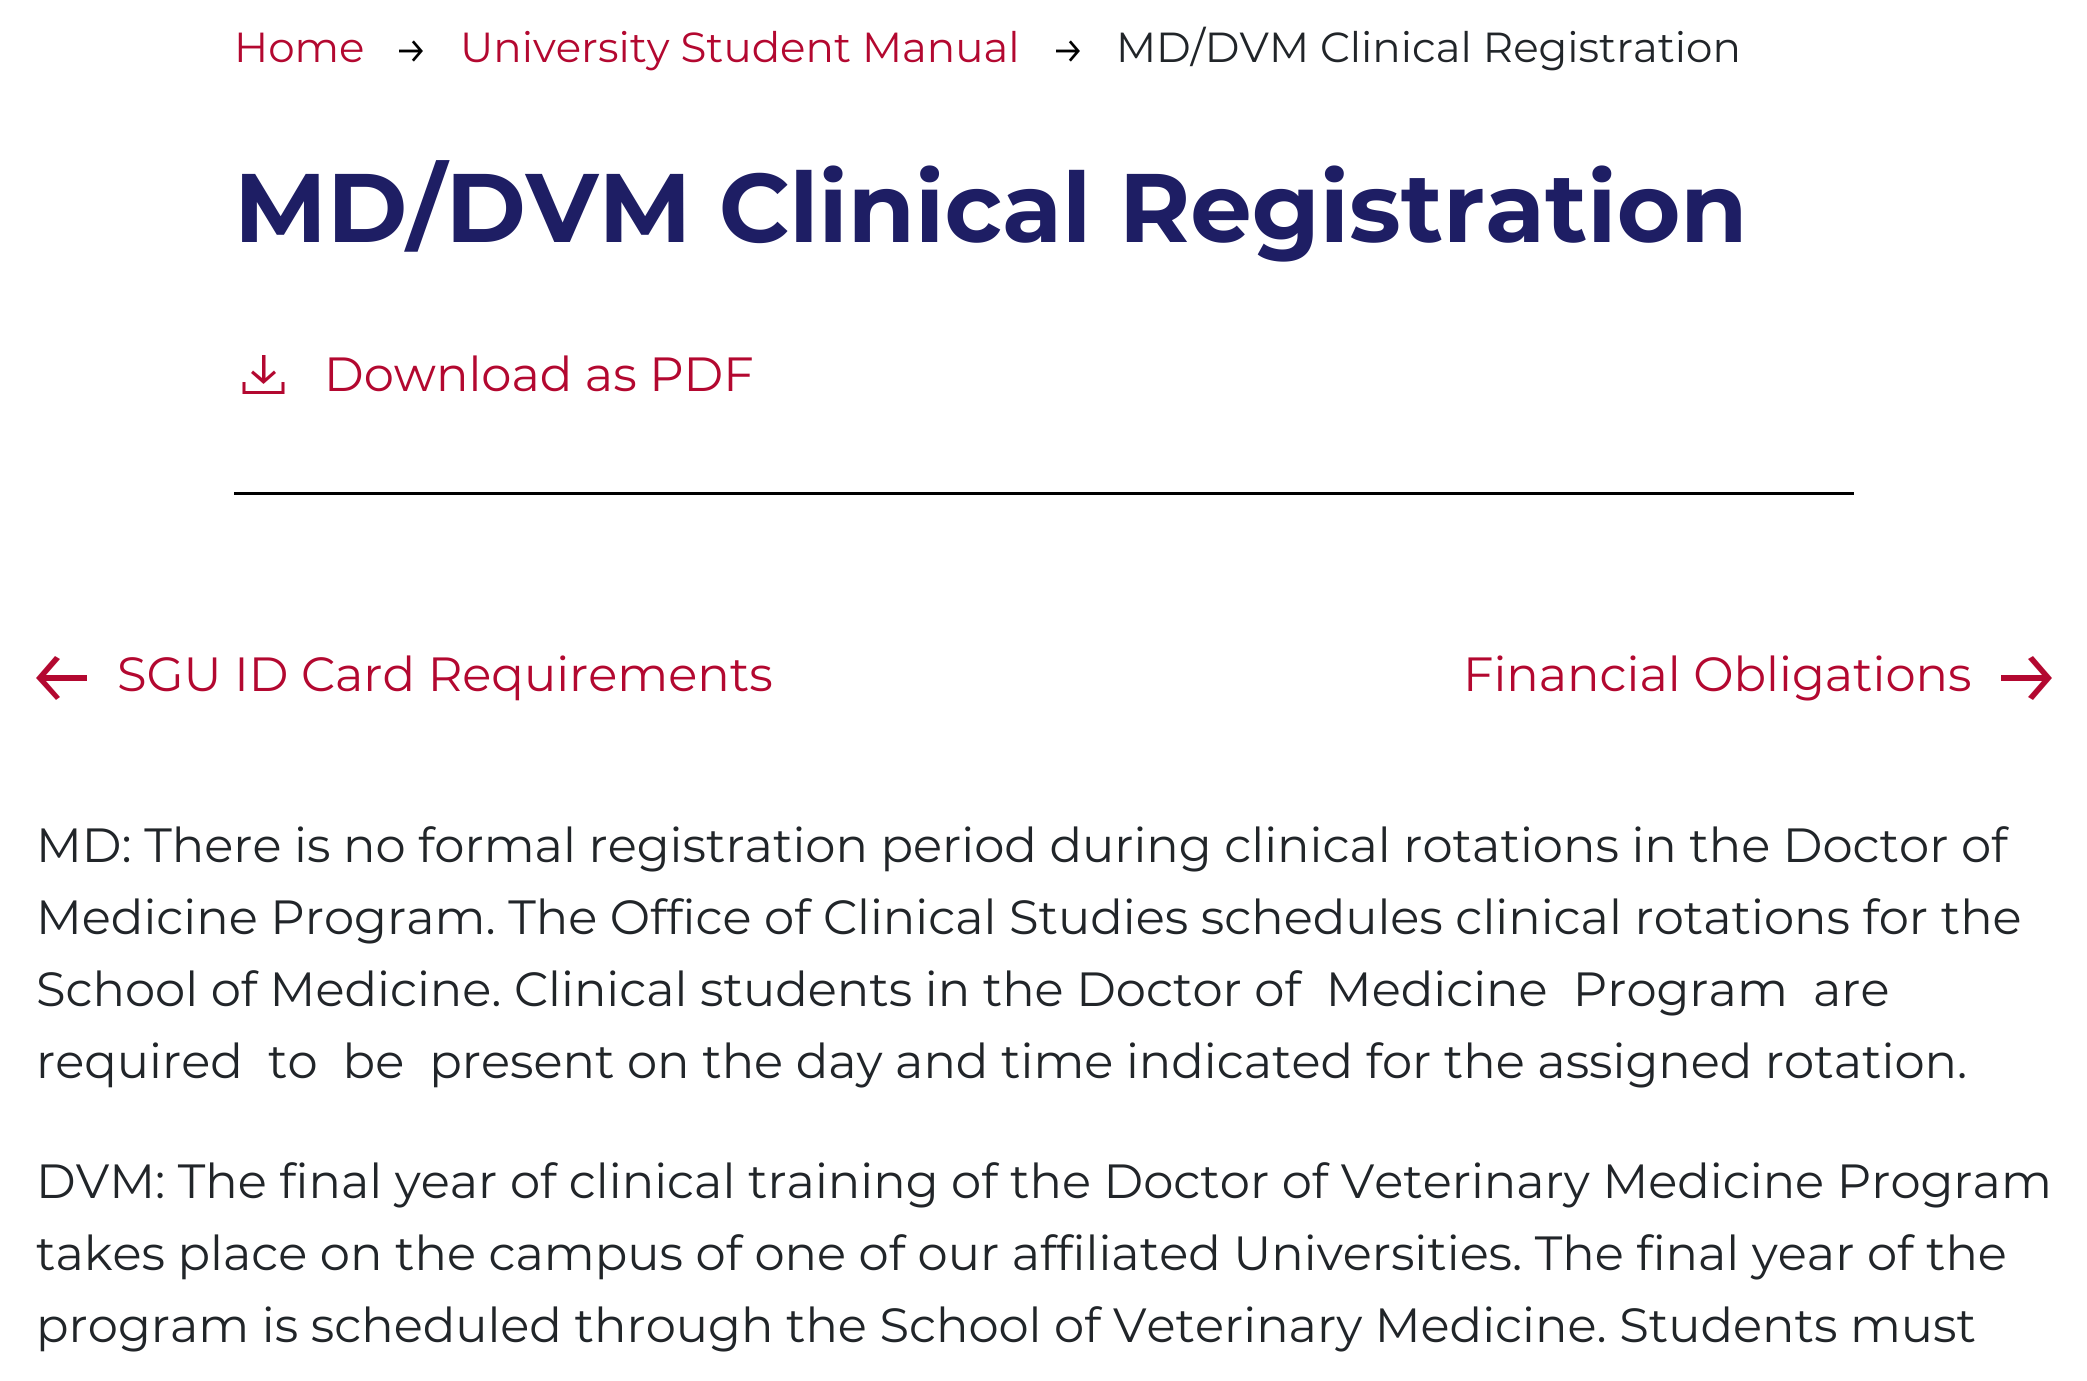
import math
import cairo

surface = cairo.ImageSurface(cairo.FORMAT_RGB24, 2087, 1381)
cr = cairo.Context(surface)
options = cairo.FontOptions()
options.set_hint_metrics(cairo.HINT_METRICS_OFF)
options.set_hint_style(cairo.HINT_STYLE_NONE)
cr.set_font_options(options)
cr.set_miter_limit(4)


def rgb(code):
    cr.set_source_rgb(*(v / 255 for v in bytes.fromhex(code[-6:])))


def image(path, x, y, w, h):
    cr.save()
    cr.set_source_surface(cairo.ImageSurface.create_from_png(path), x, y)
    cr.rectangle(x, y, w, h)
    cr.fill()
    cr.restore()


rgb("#ffffff")
cr.paint()
rgb("#000000")
cr.rectangle(234, 492, 1620, 3)
cr.fill()
image("img/1.png", 399, 40, 24, 22)
image("img/1.png", 1056, 40, 24, 22)
cr.new_path()
cr.move_to(244, 382)
cr.line_to(244, 392.5)
cr.line_to(283, 392.5)
cr.line_to(283, 382)
rgb("#b30830")
cr.set_line_width(3)
cr.stroke()
cr.new_path()
cr.move_to(263.5, 384)
cr.line_to(276, 373)
cr.line_to(274, 370.5)
cr.line_to(265.5, 378)
cr.line_to(265.5, 355)
cr.line_to(262, 355)
cr.line_to(262, 378)
cr.line_to(253, 370.5)
cr.line_to(251, 373)
cr.close_path()
cr.fill()
cr.new_path()
cr.move_to(36, 678)
cr.line_to(56, 700)
cr.line_to(60, 697)
cr.line_to(46, 681)
cr.line_to(87, 681)
cr.line_to(87, 675)
cr.line_to(46, 675)
cr.line_to(60, 659)
cr.line_to(55, 656)
cr.close_path()
cr.fill()
cr.new_path()
cr.move_to(2052, 678)
cr.line_to(2033, 656)
cr.line_to(2028, 659)
cr.line_to(2042, 675)
cr.line_to(2001, 675)
cr.line_to(2001, 681)
cr.line_to(2042, 681)
cr.line_to(2028, 697)
cr.line_to(2033, 700)
cr.close_path()
cr.fill()
cr.select_font_face("Montserrat")
cr.set_font_size(42)
cr.move_to(234, 62)
cr.show_text("Home")
cr.move_to(460, 62)
cr.show_text("University Student Manual")
rgb("#212529")
cr.move_to(1116, 62)
cr.show_text("MD/DVM Clinical Registration")
cr.select_font_face("Montserrat", cairo.FONT_SLANT_NORMAL, cairo.FONT_WEIGHT_BOLD)
cr.set_font_size(97.3)
rgb("#1e1e64")
cr.move_to(234, 242)
cr.show_text("MD/DVM Clinical Registration")
cr.select_font_face("Montserrat")
cr.set_font_size(48)
rgb("#b30830")
for x, y, s in [
    (324, 391, "Download as PDF"),
    (117, 691, "SGU ID Card Requirements"),
    (1463, 691, "Financial Obligations"),
]:
    cr.move_to(x, y)
    cr.show_text(s)
rgb("#212529")
for x, y, s in [
    (36, 862, "MD: There is no formal registration period during clinical rotations in the Doctor of"),
    (36, 934, "Medicine Program. The Office of Clinical Studies schedules clinical rotations for the"),
    (36, 1006, "School of Medicine. Clinical students in the Doctor of  Medicine  Program  are"),
    (36, 1078, "required  to  be  present on the day and time indicated for the assigned rotation."),
    (36, 1198, "DVM: The final year of clinical training of the Doctor of Veterinary Medicine Program"),
    (36, 1270, "takes place on the campus of one of our affiliated Universities. The final year of the"),
    (36, 1342, "program is scheduled through the School of Veterinary Medicine. Students must"),
]:
    cr.move_to(x, y)
    cr.show_text(s)
surface.write_to_png("page.png")
